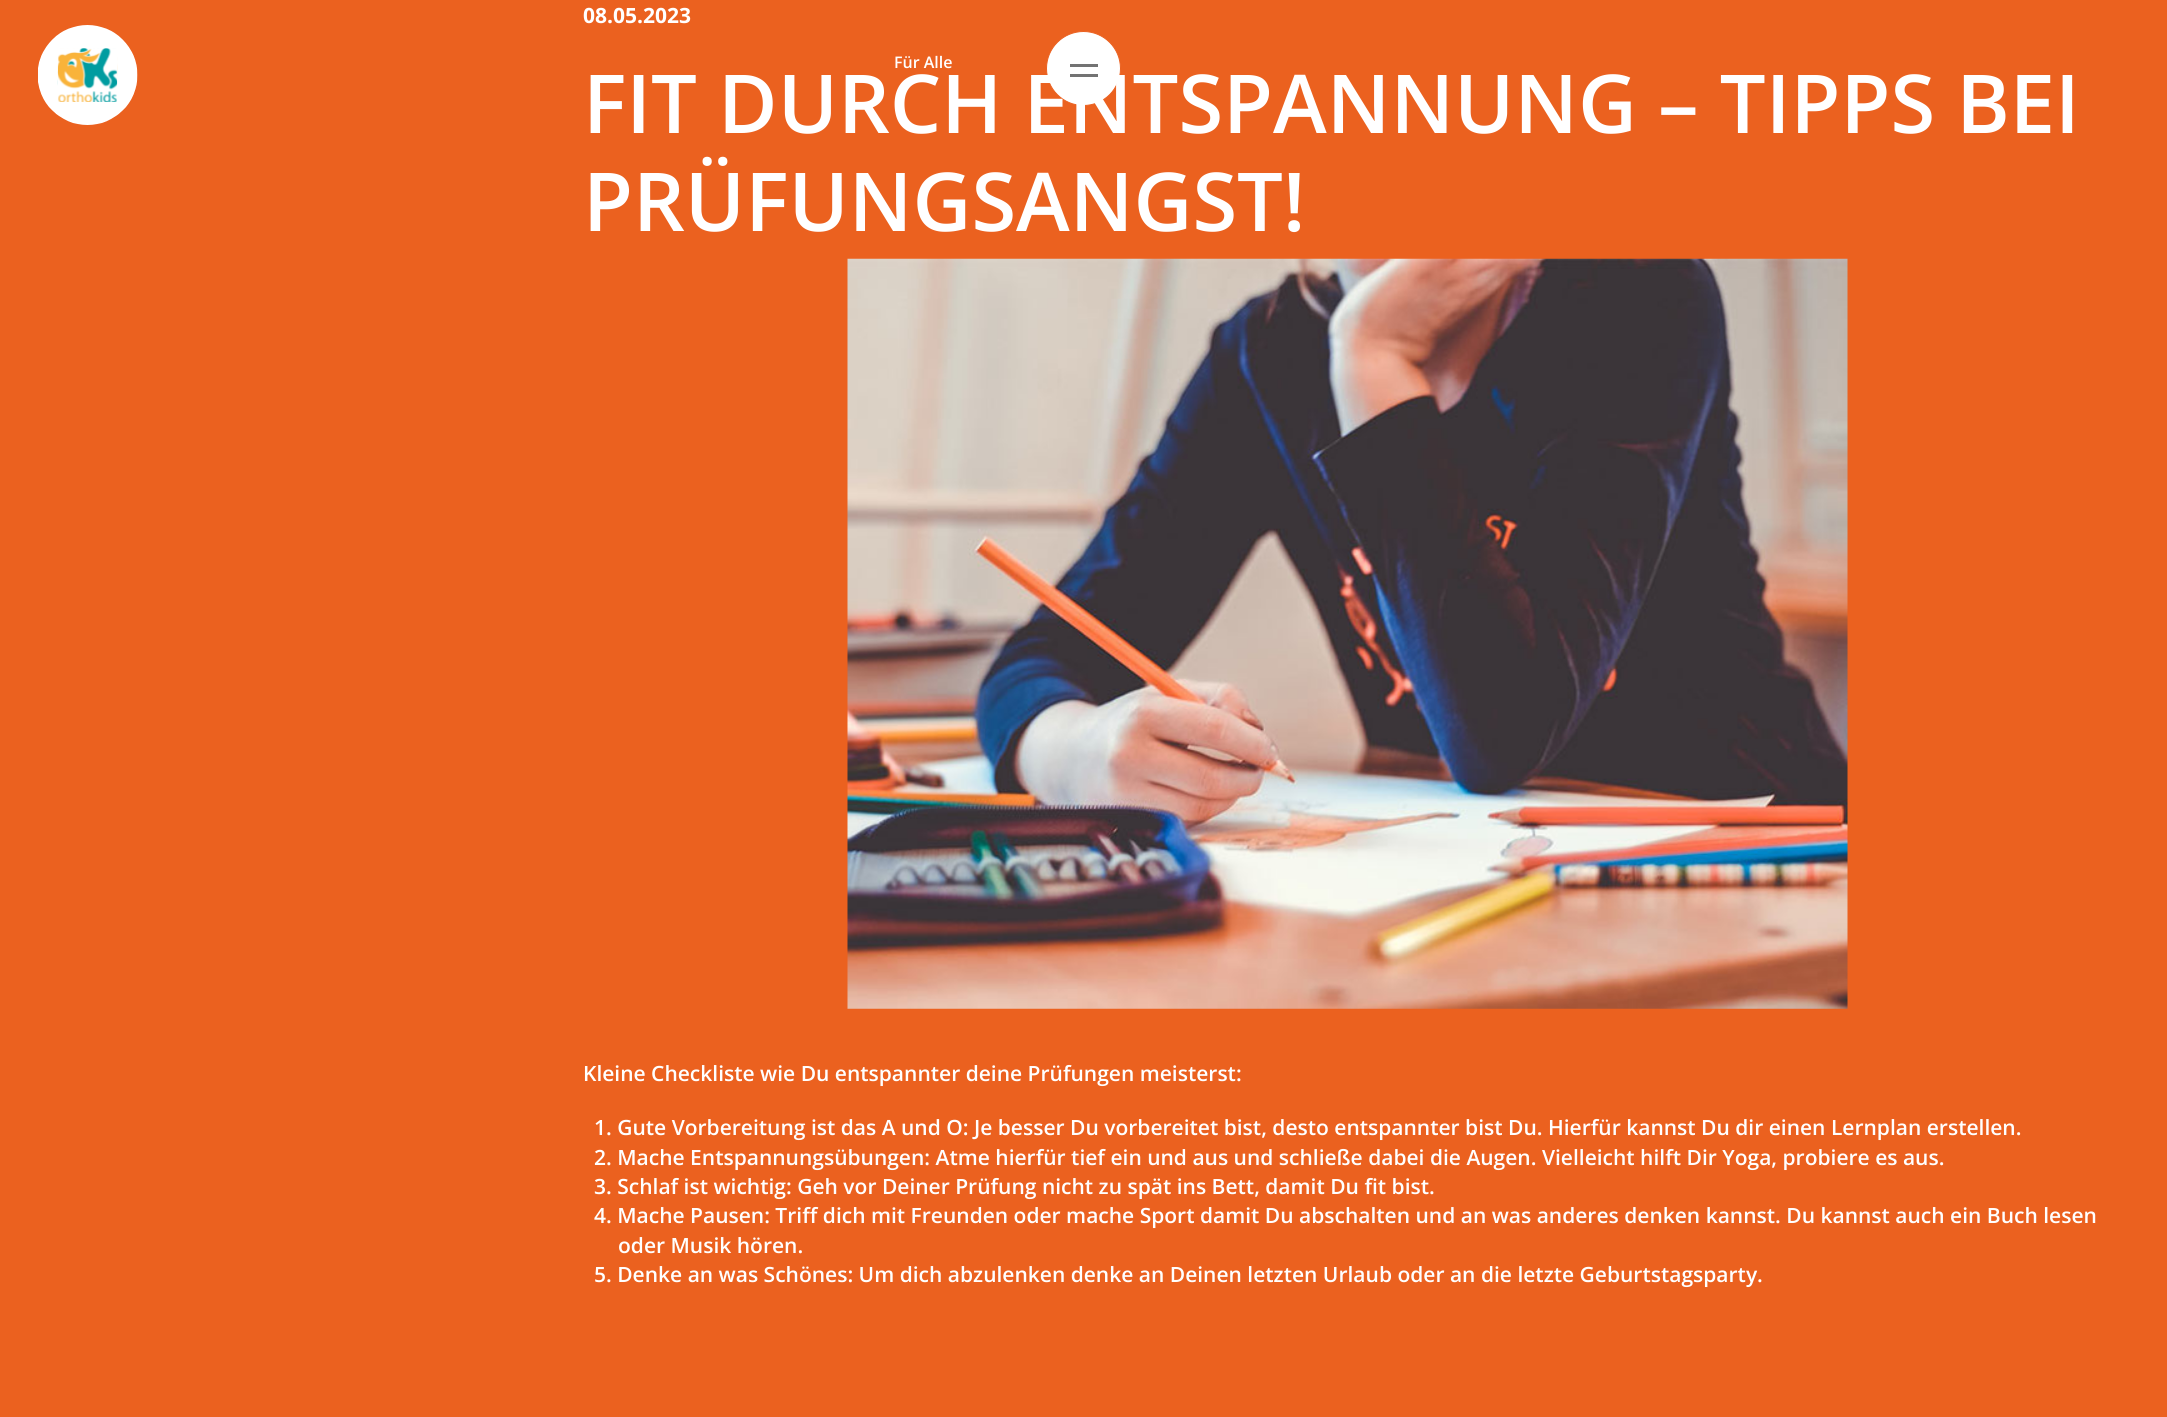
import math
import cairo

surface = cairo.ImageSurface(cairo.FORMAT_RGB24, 2167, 1417)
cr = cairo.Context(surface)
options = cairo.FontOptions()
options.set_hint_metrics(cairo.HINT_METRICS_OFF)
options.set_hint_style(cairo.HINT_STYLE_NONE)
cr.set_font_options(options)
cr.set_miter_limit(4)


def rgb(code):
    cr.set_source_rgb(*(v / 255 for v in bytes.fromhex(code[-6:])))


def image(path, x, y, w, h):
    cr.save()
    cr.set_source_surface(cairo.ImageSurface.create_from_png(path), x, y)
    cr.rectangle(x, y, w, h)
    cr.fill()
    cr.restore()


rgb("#eb611f")
cr.paint()
image("img/1.png", 847, 258, 1001, 751)
image("img/2.png", 38, 25, 100, 100)
rgb("#ffffff")
cr.arc(1083.5, 68.5, 37, 0, 2 * math.pi)
cr.fill_preserve()
rgb("#eb611f")
cr.set_line_width(1)
cr.stroke()
rgb("#737373")
cr.rectangle(1070, 64, 28, 3)
cr.fill()
cr.select_font_face("Open Sans", cairo.FONT_SLANT_NORMAL, cairo.FONT_WEIGHT_BOLD)
cr.set_font_size(21)
rgb("#ffffff")
cr.move_to(583, 23)
cr.show_text("08.05.2023")
cr.select_font_face("Open Sans SemiBold")
cr.set_font_size(81.25)
cr.move_to(583, 133)
cr.show_text("FIT DURCH ENTSPANNUNG – TIPPS BEI")
cr.move_to(583, 231)
cr.show_text("PRÜFUNGSANGST!")
cr.set_font_size(21)
for x, y, s in [
    (583, 1081, "Kleine Checkliste wie Du entspannter deine Prüfungen meisterst:"),
    (594, 1135, "1. Gute Vorbereitung ist das A und O: Je besser Du vorbereitet bist, desto entspannter bist Du. Hierfür kannst Du dir einen Lernplan erstellen."),
    (594, 1165, "2. Mache Entspannungsübungen: Atme hierfür tief ein und aus und schließe dabei die Augen. Vielleicht hilft Dir Yoga, probiere es aus."),
    (594, 1194, "3. Schlaf ist wichtig: Geh vor Deiner Prüfung nicht zu spät ins Bett, damit Du fit bist."),
    (594, 1223, "4. Mache Pausen: Triff dich mit Freunden oder mache Sport damit Du abschalten und an was anderes denken kannst. Du kannst auch ein Buch lesen"),
    (618, 1253, "oder Musik hören."),
    (594, 1282, "5. Denke an was Schönes: Um dich abzulenken denke an Deinen letzten Urlaub oder an die letzte Geburtstagsparty."),
]:
    cr.move_to(x, y)
    cr.show_text(s)
cr.set_font_size(16)
cr.move_to(894, 68)
cr.show_text("Für Alle")
rgb("#737373")
cr.rectangle(1070, 74, 28, 3)
cr.fill()
surface.write_to_png("page.png")
